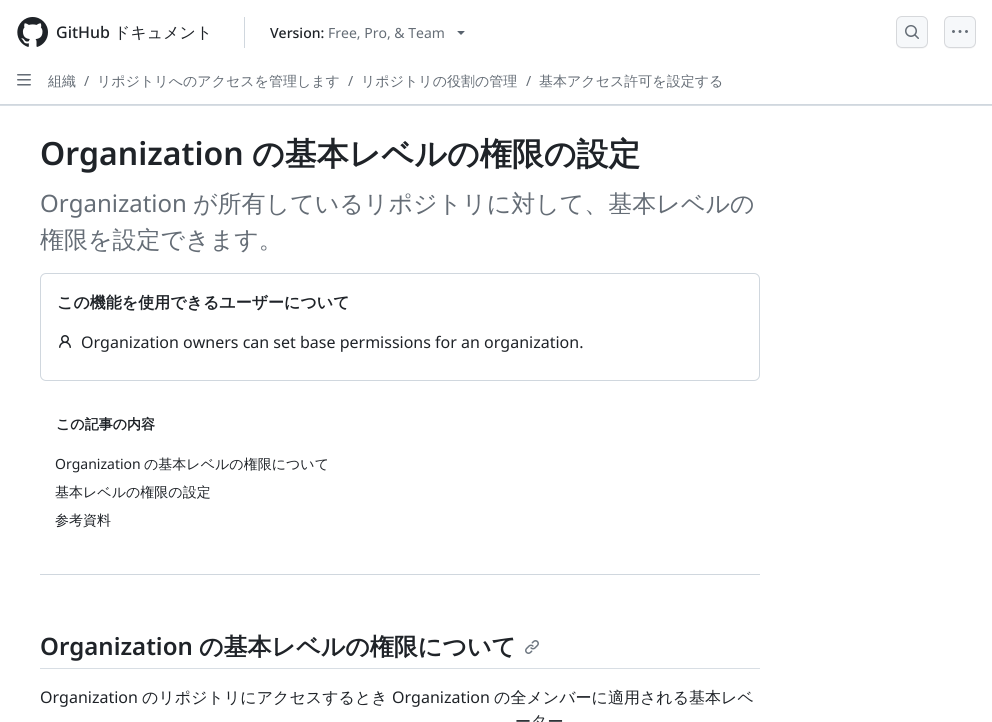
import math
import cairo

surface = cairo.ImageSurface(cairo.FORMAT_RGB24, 992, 722)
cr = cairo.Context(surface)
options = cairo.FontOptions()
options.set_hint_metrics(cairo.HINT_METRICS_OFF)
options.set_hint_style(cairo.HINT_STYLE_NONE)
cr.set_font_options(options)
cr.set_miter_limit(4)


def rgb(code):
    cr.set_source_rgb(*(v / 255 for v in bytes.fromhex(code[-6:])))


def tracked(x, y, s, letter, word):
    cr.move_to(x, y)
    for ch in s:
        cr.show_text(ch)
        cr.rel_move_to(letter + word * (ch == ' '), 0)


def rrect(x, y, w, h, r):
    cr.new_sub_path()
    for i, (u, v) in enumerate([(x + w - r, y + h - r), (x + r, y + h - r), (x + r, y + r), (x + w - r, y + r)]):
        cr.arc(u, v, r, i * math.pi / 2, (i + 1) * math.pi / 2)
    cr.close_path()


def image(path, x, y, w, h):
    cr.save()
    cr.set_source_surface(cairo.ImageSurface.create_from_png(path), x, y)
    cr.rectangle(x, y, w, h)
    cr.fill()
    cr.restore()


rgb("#ffffff")
cr.paint()
rgb("#d8dee4")
cr.rectangle(0, 105, 992, 1)
cr.fill()
rgb("#d0d7de")
cr.rectangle(0, 104, 992, 1)
cr.fill()
image("img/1.png", 17, 17, 31, 30)
cr.rectangle(244, 17, 1, 31)
cr.fill()
image("img/2.png", 457, 31, 8, 4)
rgb("#f6f6f6")
cr.new_path()
cr.move_to(896, 42)
cr.curve_to(896, 48.5, 900, 49, 905.5, 49)
cr.line_to(918.5, 49)
cr.curve_to(924, 49, 928, 48.5, 928, 42)
cr.curve_to(928, 45.5, 925.5, 48, 922, 48)
cr.line_to(902, 48)
cr.curve_to(898.5, 48, 896, 45.5, 896, 42)
cr.close_path()
cr.fill()
rgb("#f6f8fa")
rrect(896.5, 16.5, 31, 31, 5.5)
cr.fill_preserve()
rgb("#d6d8db")
cr.set_line_width(1)
cr.stroke()
image("img/3.png", 905, 25, 14, 14)
rgb("#f6f6f6")
cr.new_path()
cr.move_to(944, 42)
cr.curve_to(944, 48.5, 948, 49, 953.5, 49)
cr.line_to(966.5, 49)
cr.curve_to(972, 49, 976, 48.5, 976, 42)
cr.curve_to(976, 45.5, 973.5, 48, 970, 48)
cr.line_to(950, 48)
cr.curve_to(946.5, 48, 944, 45.5, 944, 42)
cr.close_path()
cr.fill()
rgb("#f6f8fa")
rrect(944.5, 16.5, 31, 31, 5.5)
cr.fill_preserve()
rgb("#d6d8db")
cr.stroke()
image("img/4.png", 952, 30, 16, 3)
image("img/5.png", 17, 74, 14, 12)
rrect(40.5, 273.5, 719, 107, 5.5)
rgb("#d0d7de")
cr.stroke()
image("img/6.png", 59, 335, 12, 13)
cr.rectangle(40, 574, 720, 1)
cr.fill()
rgb("#d8dee4")
cr.rectangle(40, 668, 720, 1)
cr.fill()
image("img/7.png", 525, 640, 14, 14)
cr.select_font_face("Noto Sans Medium")
cr.set_font_size(16)
rgb("#1f2328")
cr.move_to(56, 38)
cr.show_text("GitHub")
cr.select_font_face("WenQuanYi Zen Hei Medium")
cr.move_to(114, 38)
cr.show_text("ドキュメント")
cr.select_font_face("Noto Sans Medium")
cr.set_font_size(14)
cr.move_to(270, 38)
cr.show_text("Version:")
cr.select_font_face("Noto Sans")
rgb("#656d76")
cr.move_to(328, 38)
cr.show_text("Free, Pro, & Team")
cr.select_font_face("WenQuanYi Zen Hei Medium")
cr.move_to(48, 86)
cr.show_text("組織")
cr.select_font_face("Noto Sans")
cr.move_to(84, 86)
cr.show_text("/")
cr.select_font_face("WenQuanYi Zen Hei Medium")
cr.move_to(97, 86)
cr.show_text("リポジトリへのアクセスを管理します")
cr.select_font_face("Noto Sans")
cr.move_to(348, 86)
cr.show_text("/")
cr.select_font_face("WenQuanYi Zen Hei Medium")
cr.move_to(361, 86)
cr.show_text("リポジトリの役割の管理")
cr.select_font_face("Noto Sans")
cr.move_to(526, 86)
cr.show_text("/")
cr.select_font_face("WenQuanYi Zen Hei Medium")
cr.move_to(539, 86)
cr.show_text("基本アクセス許可を設定する")
cr.select_font_face("Noto Sans SemiBold")
cr.set_font_size(32)
rgb("#1f2328")
cr.move_to(40, 165)
cr.show_text("Organization")
cr.select_font_face("WenQuanYi Zen Hei", cairo.FONT_SLANT_NORMAL, cairo.FONT_WEIGHT_BOLD)
cr.move_to(252, 165)
cr.show_text("の基本レベルの権限の設定")
cr.select_font_face("Noto Sans")
cr.set_font_size(24)
rgb("#656d76")
cr.move_to(40, 212)
cr.show_text("Organization")
cr.select_font_face("WenQuanYi Zen Hei Medium")
cr.move_to(193, 212)
cr.show_text("が所有しているリポジトリに対して、基本レベルの")
cr.move_to(40, 248)
cr.show_text("権限を設定できます。")
cr.select_font_face("WenQuanYi Zen Hei", cairo.FONT_SLANT_NORMAL, cairo.FONT_WEIGHT_BOLD)
cr.set_font_size(16)
rgb("#1f2328")
cr.move_to(57, 308)
cr.show_text("この機能を使用できるユーザーについて")
cr.select_font_face("Noto Sans")
cr.move_to(81, 348)
cr.show_text("Organization owners can set base permissions for an organization.")
cr.select_font_face("WenQuanYi Zen Hei", cairo.FONT_SLANT_NORMAL, cairo.FONT_WEIGHT_BOLD)
cr.set_font_size(14)
cr.move_to(56, 429)
cr.show_text("この記事の内容")
cr.select_font_face("Noto Sans")
cr.move_to(55, 469)
cr.show_text("Organization")
cr.select_font_face("WenQuanYi Zen Hei Medium")
for x, y, s in [
    (144, 469, "の基本レベルの権限について"),
    (55, 497, "基本レベルの権限の設定"),
    (55, 525, "参考資料"),
]:
    cr.move_to(x, y)
    cr.show_text(s)
cr.select_font_face("Noto Sans SemiBold")
cr.set_font_size(24)
cr.move_to(40, 655)
cr.show_text("Organization")
cr.select_font_face("WenQuanYi Zen Hei", cairo.FONT_SLANT_NORMAL, cairo.FONT_WEIGHT_BOLD)
cr.move_to(199, 655)
cr.show_text("の基本レベルの権限について")
cr.select_font_face("Noto Sans")
cr.set_font_size(16)
cr.move_to(40, 703)
cr.show_text("Organization")
cr.select_font_face("WenQuanYi Zen Hei Medium")
cr.move_to(142, 703)
cr.show_text("のリポジトリにアクセスするとき")
cr.select_font_face("Noto Sans")
cr.move_to(392, 703)
cr.show_text("Organization")
cr.select_font_face("WenQuanYi Zen Hei Medium")
cr.move_to(494, 703)
cr.show_text("の全メンバーに適用される基本レベ")
tracked(515, 727, "ーター", 0, -1)
surface.write_to_png("page.png")
